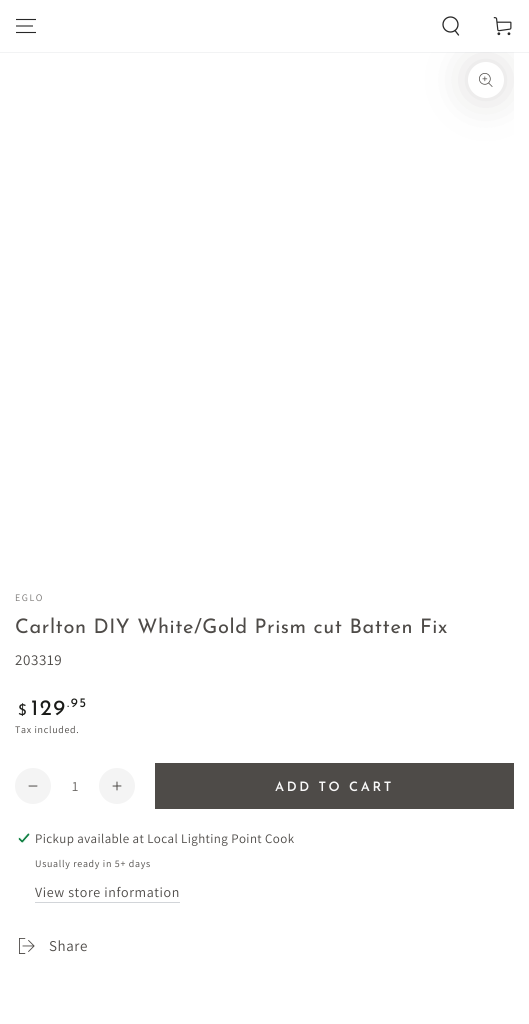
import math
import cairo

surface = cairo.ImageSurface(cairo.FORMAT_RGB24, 529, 1024)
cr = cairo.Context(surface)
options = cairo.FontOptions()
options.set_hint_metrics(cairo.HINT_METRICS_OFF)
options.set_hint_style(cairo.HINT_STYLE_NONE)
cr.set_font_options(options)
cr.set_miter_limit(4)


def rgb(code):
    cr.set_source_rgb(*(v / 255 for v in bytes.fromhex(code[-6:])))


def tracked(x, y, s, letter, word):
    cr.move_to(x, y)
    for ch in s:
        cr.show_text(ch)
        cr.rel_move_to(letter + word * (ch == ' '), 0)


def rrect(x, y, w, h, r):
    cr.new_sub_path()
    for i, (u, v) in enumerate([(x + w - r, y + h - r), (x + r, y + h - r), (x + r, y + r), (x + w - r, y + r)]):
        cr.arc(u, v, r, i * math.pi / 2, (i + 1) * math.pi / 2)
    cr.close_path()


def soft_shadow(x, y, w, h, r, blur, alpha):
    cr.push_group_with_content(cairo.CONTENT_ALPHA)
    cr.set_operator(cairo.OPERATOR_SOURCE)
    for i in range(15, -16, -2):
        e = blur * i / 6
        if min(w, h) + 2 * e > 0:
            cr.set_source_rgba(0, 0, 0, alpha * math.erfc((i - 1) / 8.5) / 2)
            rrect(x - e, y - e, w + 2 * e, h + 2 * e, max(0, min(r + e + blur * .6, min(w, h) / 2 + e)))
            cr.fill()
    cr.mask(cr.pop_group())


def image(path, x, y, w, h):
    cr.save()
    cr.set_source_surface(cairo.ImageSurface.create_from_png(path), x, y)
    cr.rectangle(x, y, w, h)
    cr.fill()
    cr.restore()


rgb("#ffffff")
cr.paint()
cr.save()
cr.rectangle(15, 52, 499, 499)
cr.clip()
rgb("#4e4b48")
soft_shadow(468, 62, 36, 36, 18, 20, 0.2)
cr.restore()
cr.set_source_rgba(0.824, 0.835, 0.851, 0.3)
cr.rectangle(0, 52, 529, 1)
cr.fill()
cr.new_path()
cr.move_to(16, 32.5)
cr.line_to(36, 32.5)
cr.move_to(16, 26)
cr.line_to(33, 26)
cr.move_to(16, 19.5)
cr.line_to(36, 19.5)
rgb("#282828")
cr.set_line_width(1.1)
cr.stroke()
cr.arc(450.5, 24.5, 7.5, 0, 2 * math.pi)
cr.set_line_width(1.3)
cr.stroke()
cr.new_path()
cr.move_to(455, 30.5)
cr.line_to(458.5, 35)
cr.set_line_cap(cairo.LINE_CAP_ROUND)
cr.stroke()
image("img/1.png", 493, 17, 19, 19)
rgb("#ffffff")
cr.arc(486, 80, 18, 0, 2 * math.pi)
cr.fill()
image("img/2.png", 479, 73, 14, 14)
rgb("#f4f4f4")
cr.arc(33, 786, 18, 0, 2 * math.pi)
cr.fill()
image("img/3.png", 28, 785, 10, 2)
cr.arc(117, 786, 18, 0, 2 * math.pi)
cr.fill()
image("img/4.png", 112, 781, 10, 10)
rgb("#4e4b48")
cr.rectangle(155, 763, 359, 46)
cr.fill()
image("img/5.png", 18, 833, 12, 10)
rgb("#d2d5d9")
cr.rectangle(35, 902, 145, 1)
cr.fill()
image("img/6.png", 19, 938, 16, 16)
cr.select_font_face("Assistant")
cr.set_font_size(10)
rgb("#7a7876")
tracked(15, 601, "EGLO", 1.5, 0)
cr.select_font_face("Josefin Sans")
cr.set_font_size(20)
rgb("#4e4b48")
tracked(15, 633, "Carlton DIY White/Gold Prism cut Batten Fix", 0.6, 0)
cr.select_font_face("Assistant")
cr.set_font_size(15)
tracked(15, 665, "203319", 0.6, 0)
cr.select_font_face("Josefin Sans")
rgb("#1a1b18")
tracked(18, 715, "$", 1.5, 0)
cr.set_font_size(22)
tracked(31, 715, "129", 1.5, 0)
cr.set_font_size(13)
tracked(67, 707, ".95", 1.5, 0)
cr.select_font_face("Assistant")
cr.set_font_size(10)
rgb("#4e4b48")
tracked(15, 733, "Tax included.", 0.7, 0)
cr.set_font_size(14)
rgb("#696663")
cr.move_to(72, 791)
cr.show_text("1")
cr.select_font_face("Josefin Sans SemiBold")
cr.set_font_size(13)
rgb("#fafafa")
tracked(275, 791, "ADD TO CART", 2.6, 0)
cr.select_font_face("Assistant")
rgb("#4e4b48")
tracked(35, 843, "Pickup available at Local Lighting Point Cook", 0.4, 0)
cr.set_font_size(10)
tracked(35, 867, "Usually ready in 5+ days", 0.7, 0)
cr.set_font_size(14)
tracked(35, 897, "View store information", 0.6, 0)
cr.set_font_size(15)
tracked(49, 951, "Share", 0.6, 0)
surface.write_to_png("page.png")
